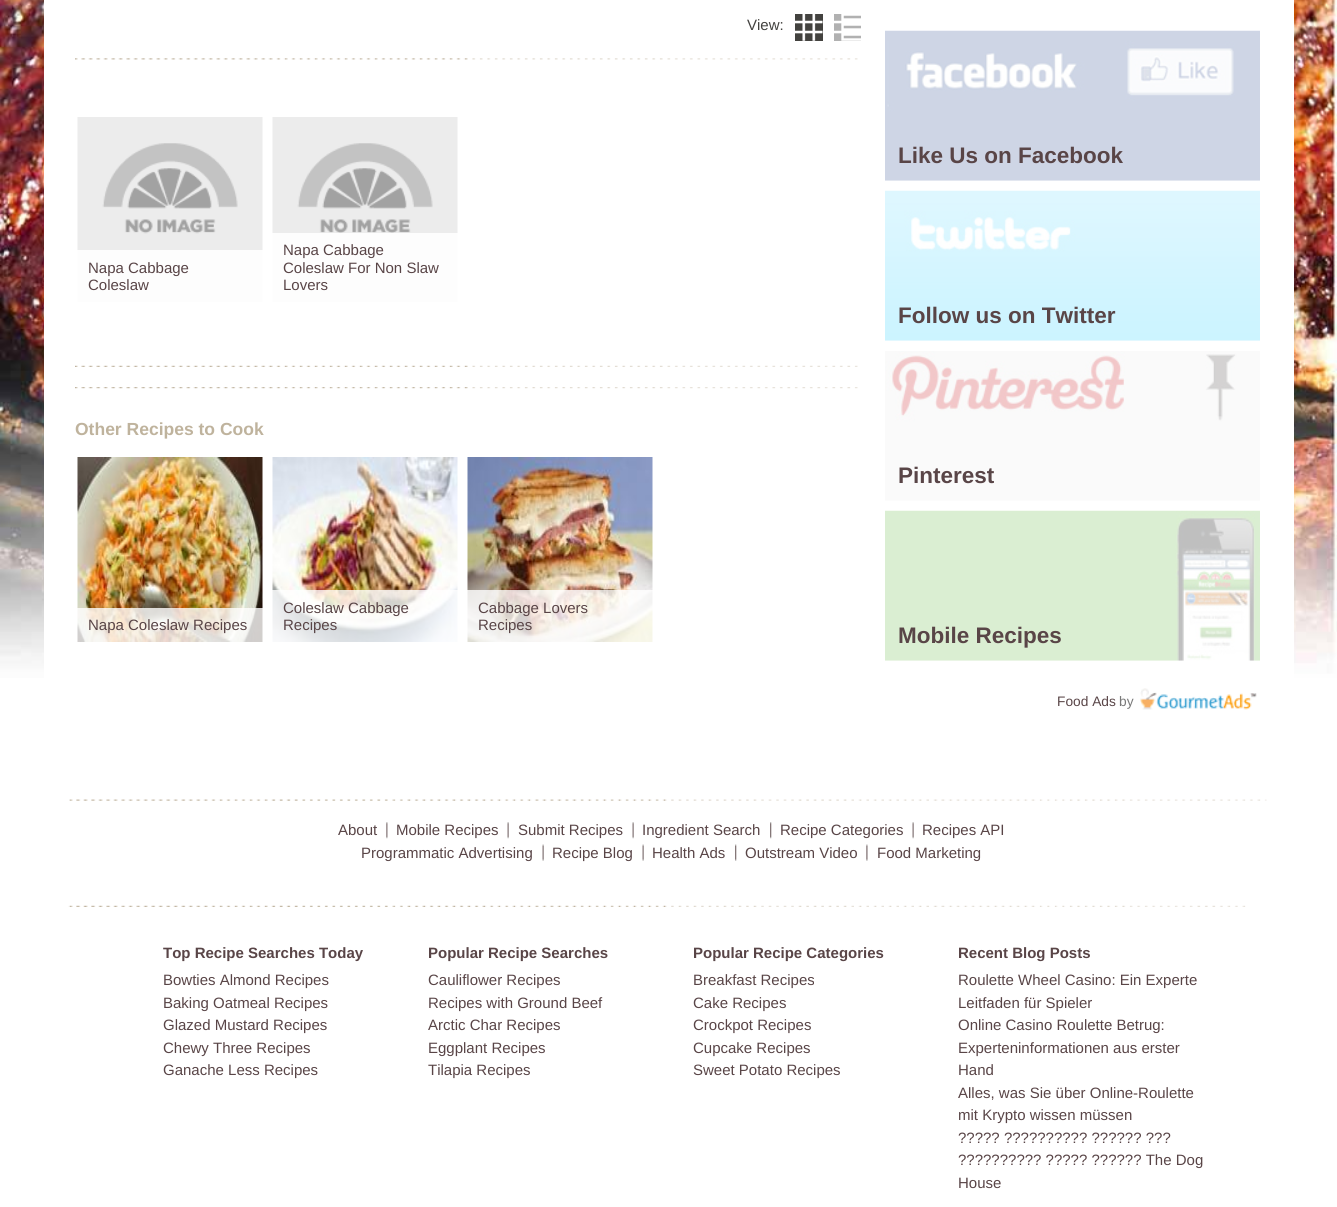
import math
import cairo

surface = cairo.ImageSurface(cairo.FORMAT_RGB24, 1337, 1207)
cr = cairo.Context(surface)
options = cairo.FontOptions()
options.set_hint_metrics(cairo.HINT_METRICS_OFF)
options.set_hint_style(cairo.HINT_STYLE_NONE)
cr.set_font_options(options)
cr.set_miter_limit(4)


def rgb(code):
    cr.set_source_rgb(*(v / 255 for v in bytes.fromhex(code[-6:])))


def image(path, x, y, w, h):
    cr.save()
    cr.set_source_surface(cairo.ImageSurface.create_from_png(path), x, y)
    cr.rectangle(x, y, w, h)
    cr.fill()
    cr.restore()


rgb("#ffffff")
cr.paint()
image("img/1.png", 0, 0, 1337, 678)
rgb("#ffffff")
cr.rectangle(44, 0, 1250, 678)
cr.fill()
image("img/2.png", 75, 58, 783, 2)
rgb("#43423f")
cr.rectangle(795, 14, 28, 27)
cr.fill()
image("img/3.png", 795, 14, 28, 27)
rgb("#b1b1b1")
cr.rectangle(834, 14, 27, 27)
cr.fill()
image("img/4.png", 834, 14, 27, 27)
image("img/5.png", 77, 117, 186, 185)
cr.set_source_rgba(1, 1, 1, 0.9)
cr.rectangle(77, 250, 186, 52)
cr.fill()
image("img/6.png", 272, 117, 186, 185)
cr.rectangle(272, 233, 186, 69)
cr.fill()
image("img/7.png", 75, 387, 783, 2)
image("img/8.png", 75, 365, 783, 2)
image("img/9.png", 77, 457, 186, 185)
cr.set_source_rgba(1, 1, 1, 0.8)
cr.rectangle(77, 608, 186, 34)
cr.fill()
image("img/10.png", 272, 457, 186, 185)
cr.rectangle(272, 590, 186, 52)
cr.fill()
image("img/11.png", 467, 457, 186, 185)
cr.rectangle(467, 590, 186, 52)
cr.fill()
image("img/12.png", 885, 30, 375, 151)
cr.set_source_rgba(1, 1, 1, 0.75)
cr.rectangle(885, 31, 375, 150)
cr.fill()
image("img/13.png", 885, 190, 375, 151)
cr.rectangle(885, 191, 375, 150)
cr.fill()
image("img/14.png", 885, 351, 375, 150)
cr.rectangle(885, 351, 375, 150)
cr.fill()
image("img/15.png", 885, 510, 375, 151)
cr.rectangle(885, 511, 375, 150)
cr.fill()
image("img/16.png", 1140, 688, 117, 22)
image("img/17.png", 69, 799, 1198, 2)
image("img/18.png", 386, 822, 2, 17)
image("img/19.png", 507, 822, 2, 17)
image("img/19.png", 632, 822, 2, 17)
image("img/20.png", 770, 822, 2, 17)
image("img/19.png", 912, 822, 2, 17)
image("img/21.png", 542, 844, 2, 17)
image("img/21.png", 642, 844, 2, 17)
image("img/22.png", 735, 844, 2, 17)
image("img/23.png", 866, 844, 2, 17)
image("img/24.png", 68, 905, 1178, 2)
cr.select_font_face("Liberation Sans")
cr.set_font_size(15)
rgb("#43423f")
cr.move_to(747, 30)
cr.show_text("View:")
rgb("#594547")
for x, y, s in [
    (88, 273, "Napa Cabbage"),
    (88, 290, "Coleslaw"),
    (283, 255, "Napa Cabbage"),
    (283, 273, "Coleslaw For Non Slaw"),
    (283, 290, "Lovers"),
]:
    cr.move_to(x, y)
    cr.show_text(s)
cr.select_font_face("Liberation Sans", cairo.FONT_SLANT_NORMAL, cairo.FONT_WEIGHT_BOLD)
cr.set_font_size(17.5)
rgb("#bfb39d")
cr.move_to(75, 435)
cr.show_text("Other Recipes to Cook")
cr.select_font_face("Liberation Sans")
cr.set_font_size(15)
rgb("#594547")
for x, y, s in [
    (88, 630, "Napa Coleslaw Recipes"),
    (283, 613, "Coleslaw Cabbage"),
    (283, 630, "Recipes"),
    (478, 613, "Cabbage Lovers"),
    (478, 630, "Recipes"),
]:
    cr.move_to(x, y)
    cr.show_text(s)
cr.select_font_face("Liberation Sans", cairo.FONT_SLANT_NORMAL, cairo.FONT_WEIGHT_BOLD)
cr.set_font_size(22.5)
for x, y, s in [
    (898, 163, "Like Us on Facebook"),
    (898, 323, "Follow us on Twitter"),
    (898, 483, "Pinterest"),
    (898, 643, "Mobile Recipes"),
]:
    cr.move_to(x, y)
    cr.show_text(s)
cr.select_font_face("Liberation Sans")
cr.set_font_size(13.75)
cr.move_to(1057, 706)
cr.show_text("Food Ads")
rgb("#797979")
cr.move_to(1119, 706)
cr.show_text("by")
cr.set_font_size(15)
rgb("#594547")
for x, y, s in [
    (338, 835, "About"),
    (396, 835, "Mobile Recipes"),
    (518, 835, "Submit Recipes"),
    (642, 835, "Ingredient Search"),
    (780, 835, "Recipe Categories"),
    (922, 835, "Recipes API"),
    (361, 858, "Programmatic Advertising"),
    (552, 858, "Recipe Blog"),
    (652, 858, "Health Ads"),
    (745, 858, "Outstream Video"),
    (877, 858, "Food Marketing"),
]:
    cr.move_to(x, y)
    cr.show_text(s)
cr.select_font_face("Liberation Sans", cairo.FONT_SLANT_NORMAL, cairo.FONT_WEIGHT_BOLD)
cr.move_to(163, 958)
cr.show_text("Top Recipe Searches Today")
cr.select_font_face("Liberation Sans")
for x, y, s in [
    (163, 985, "Bowties Almond Recipes"),
    (163, 1008, "Baking Oatmeal Recipes"),
    (163, 1030, "Glazed Mustard Recipes"),
    (163, 1053, "Chewy Three Recipes"),
    (163, 1075, "Ganache Less Recipes"),
]:
    cr.move_to(x, y)
    cr.show_text(s)
cr.select_font_face("Liberation Sans", cairo.FONT_SLANT_NORMAL, cairo.FONT_WEIGHT_BOLD)
cr.move_to(428, 958)
cr.show_text("Popular Recipe Searches")
cr.select_font_face("Liberation Sans")
for x, y, s in [
    (428, 985, "Cauliflower Recipes"),
    (428, 1008, "Recipes with Ground Beef"),
    (428, 1030, "Arctic Char Recipes"),
    (428, 1053, "Eggplant Recipes"),
    (428, 1075, "Tilapia Recipes"),
]:
    cr.move_to(x, y)
    cr.show_text(s)
cr.select_font_face("Liberation Sans", cairo.FONT_SLANT_NORMAL, cairo.FONT_WEIGHT_BOLD)
cr.move_to(693, 958)
cr.show_text("Popular Recipe Categories")
cr.select_font_face("Liberation Sans")
for x, y, s in [
    (693, 985, "Breakfast Recipes"),
    (693, 1008, "Cake Recipes"),
    (693, 1030, "Crockpot Recipes"),
    (693, 1053, "Cupcake Recipes"),
    (693, 1075, "Sweet Potato Recipes"),
]:
    cr.move_to(x, y)
    cr.show_text(s)
cr.select_font_face("Liberation Sans", cairo.FONT_SLANT_NORMAL, cairo.FONT_WEIGHT_BOLD)
cr.move_to(958, 958)
cr.show_text("Recent Blog Posts")
cr.select_font_face("Liberation Sans")
for x, y, s in [
    (958, 985, "Roulette Wheel Casino: Ein Experte"),
    (958, 1008, "Leitfaden für Spieler"),
    (958, 1030, "Online Casino Roulette Betrug:"),
    (958, 1053, "Experteninformationen aus erster"),
    (958, 1075, "Hand"),
    (958, 1098, "Alles, was Sie über Online-Roulette"),
    (958, 1120, "mit Krypto wissen müssen"),
    (958, 1143, "????? ?????????? ?????? ???"),
    (958, 1165, "?????????? ????? ?????? The Dog"),
    (958, 1188, "House"),
]:
    cr.move_to(x, y)
    cr.show_text(s)
surface.write_to_png("page.png")
